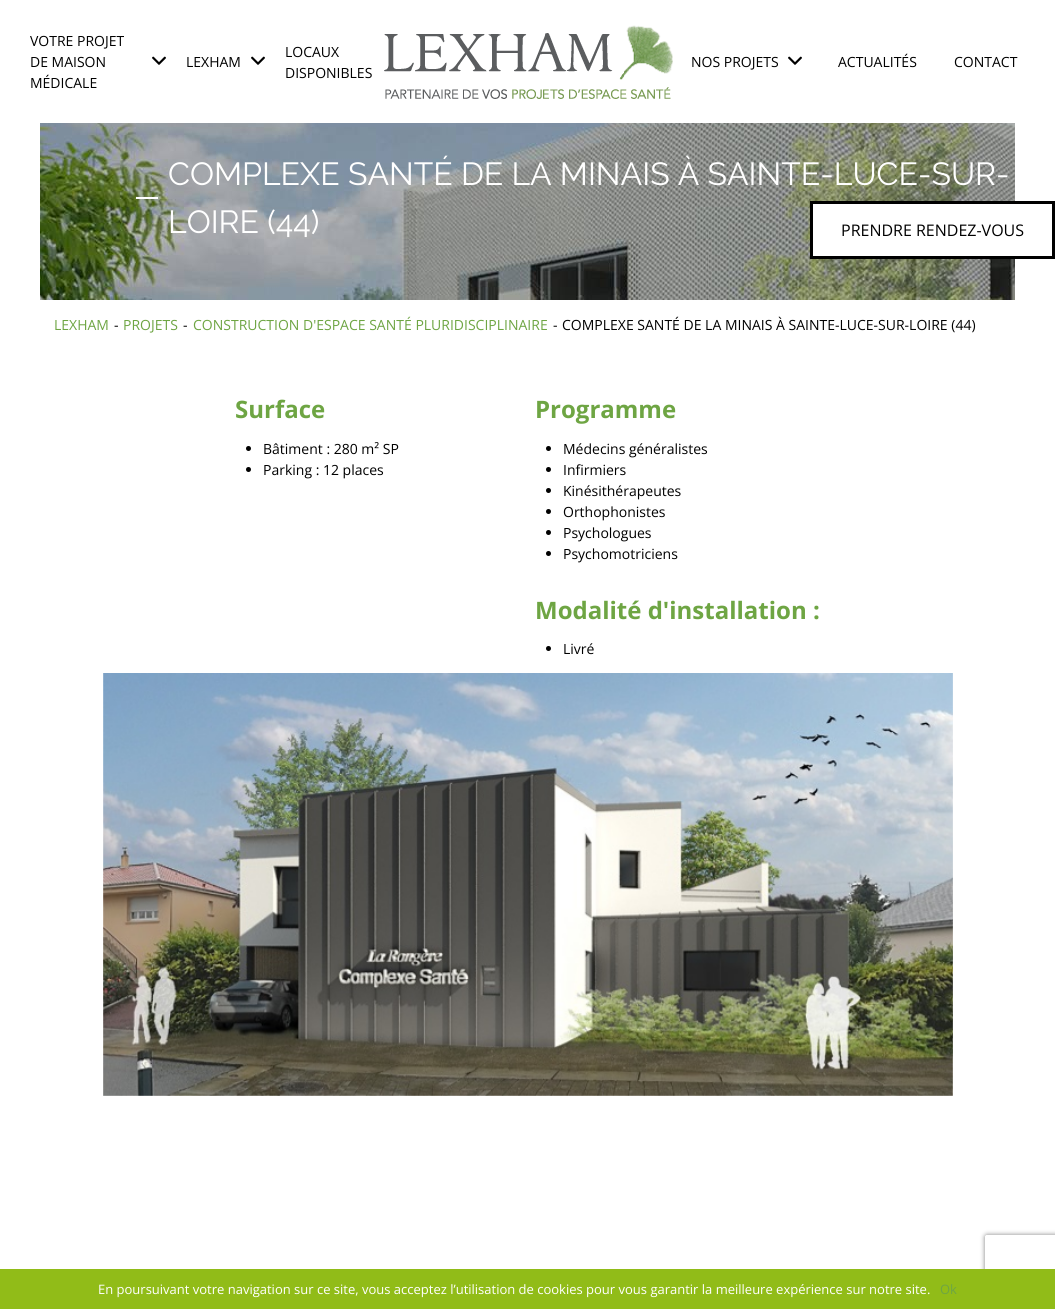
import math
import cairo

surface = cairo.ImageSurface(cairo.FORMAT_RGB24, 1055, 1309)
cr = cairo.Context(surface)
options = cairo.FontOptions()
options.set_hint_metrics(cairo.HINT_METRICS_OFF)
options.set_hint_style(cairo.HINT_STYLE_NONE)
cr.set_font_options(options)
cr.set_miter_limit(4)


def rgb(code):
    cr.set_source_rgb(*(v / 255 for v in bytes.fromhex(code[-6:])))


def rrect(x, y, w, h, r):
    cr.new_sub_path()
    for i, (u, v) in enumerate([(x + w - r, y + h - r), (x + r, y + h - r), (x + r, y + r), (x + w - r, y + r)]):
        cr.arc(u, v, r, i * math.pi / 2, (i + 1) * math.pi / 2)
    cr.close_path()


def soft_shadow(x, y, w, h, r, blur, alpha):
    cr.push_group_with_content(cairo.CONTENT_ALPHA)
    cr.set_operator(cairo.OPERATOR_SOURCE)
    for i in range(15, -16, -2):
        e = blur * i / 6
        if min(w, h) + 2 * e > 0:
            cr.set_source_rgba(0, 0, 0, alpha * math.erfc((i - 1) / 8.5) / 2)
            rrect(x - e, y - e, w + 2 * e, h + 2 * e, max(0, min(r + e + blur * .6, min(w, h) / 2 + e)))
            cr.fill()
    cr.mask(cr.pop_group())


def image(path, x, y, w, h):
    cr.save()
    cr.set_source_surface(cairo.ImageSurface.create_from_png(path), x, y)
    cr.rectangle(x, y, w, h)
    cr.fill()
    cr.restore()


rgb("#ffffff")
cr.paint()
image("img/1.png", 152, 56, 14, 9)
image("img/1.png", 251, 56, 14, 9)
image("img/2.png", 384, 25, 289, 74)
image("img/1.png", 788, 56, 14, 9)
image("img/3.png", 40, 123, 975, 177)
rgb("#ffffff")
cr.rectangle(136, 197, 22, 2)
cr.fill()
cr.rectangle(813, 204, 202, 52)
cr.fill()
cr.rectangle(811.5, 202.5, 242, 55)
rgb("#000000")
cr.set_line_width(3)
cr.stroke()
cr.arc(248.5, 448.5, 2.5, 0, 2 * math.pi)
cr.fill()
cr.arc(248.5, 469.5, 2.5, 0, 2 * math.pi)
cr.fill()
cr.arc(548.5, 448.5, 2.5, 0, 2 * math.pi)
cr.fill()
cr.arc(548.5, 469.5, 2.5, 0, 2 * math.pi)
cr.fill()
cr.arc(548.5, 490.5, 2.5, 0, 2 * math.pi)
cr.fill()
cr.arc(548.5, 511.5, 2.5, 0, 2 * math.pi)
cr.fill()
cr.arc(548.5, 532.5, 2.5, 0, 2 * math.pi)
cr.fill()
cr.arc(548.5, 553.5, 2.5, 0, 2 * math.pi)
cr.fill()
cr.arc(548.5, 648.5, 2.5, 0, 2 * math.pi)
cr.fill()
image("img/4.png", 103, 673, 850, 423)
cr.save()
cr.set_fill_rule(cairo.FILL_RULE_EVEN_ODD)
cr.new_path()
cr.move_to(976, 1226)
cr.line_to(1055, 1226)
cr.line_to(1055, 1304)
cr.line_to(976, 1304)
cr.close_path()
cr.move_to(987, 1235)
cr.line_to(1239, 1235)
cr.curve_to(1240, 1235, 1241, 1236, 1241, 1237)
cr.line_to(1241, 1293)
cr.curve_to(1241, 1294, 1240, 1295, 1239, 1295)
cr.line_to(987, 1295)
cr.curve_to(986, 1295, 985, 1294, 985, 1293)
cr.line_to(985, 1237)
cr.curve_to(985, 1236, 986, 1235, 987, 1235)
cr.close_path()
cr.clip()
rgb("#808080")
soft_shadow(985, 1235, 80, 60, 2, 2.5, 1)
cr.restore()
rgb("#91bc18")
cr.rectangle(0, 1269, 1055, 40)
cr.fill()
cr.select_font_face("Open Sans")
cr.set_font_size(14)
rgb("#000000")
for x, y, s in [
    (30, 46, "VOTRE PROJET"),
    (30, 67, "DE MAISON"),
    (30, 88, "MÉDICALE"),
    (186, 67, "LEXHAM"),
    (285, 57, "LOCAUX"),
    (285, 78, "DISPONIBLES"),
    (691, 67, "NOS PROJETS"),
    (838, 67, "ACTUALITÉS"),
    (954, 67, "CONTACT"),
]:
    cr.move_to(x, y)
    cr.show_text(s)
cr.select_font_face("Raleway Thin")
cr.set_font_size(32)
rgb("#ffffff")
cr.move_to(168, 185)
cr.show_text("COMPLEXE SANTÉ DE LA MINAIS À SAINTE-LUCE-SUR-")
cr.move_to(168, 233)
cr.show_text("LOIRE (44)")
cr.select_font_face("Open Sans")
cr.set_font_size(16)
rgb("#000000")
cr.move_to(841, 236)
cr.show_text("PRENDRE RENDEZ-VOUS")
cr.set_font_size(14)
rgb("#6ea543")
cr.move_to(54, 330)
cr.show_text("LEXHAM")
rgb("#000000")
cr.move_to(114, 330)
cr.show_text("-")
rgb("#6ea543")
cr.move_to(123, 330)
cr.show_text("PROJETS")
rgb("#000000")
cr.move_to(183, 330)
cr.show_text("-")
rgb("#6ea543")
cr.move_to(193, 330)
cr.show_text("CONSTRUCTION D'ESPACE SANTÉ PLURIDISCIPLINAIRE")
rgb("#000000")
cr.move_to(553, 330)
cr.show_text("-")
cr.move_to(562, 330)
cr.show_text("COMPLEXE SANTÉ DE LA MINAIS À SAINTE-LUCE-SUR-LOIRE (44)")
cr.select_font_face("Open Sans", cairo.FONT_SLANT_NORMAL, cairo.FONT_WEIGHT_BOLD)
cr.set_font_size(24)
rgb("#6ea543")
cr.move_to(235, 418)
cr.show_text("Surface")
cr.select_font_face("Open Sans")
cr.set_font_size(14)
rgb("#000000")
cr.move_to(263, 454)
cr.show_text("Bâtiment : 280 m² SP")
cr.move_to(263, 475)
cr.show_text("Parking : 12 places")
cr.select_font_face("Open Sans", cairo.FONT_SLANT_NORMAL, cairo.FONT_WEIGHT_BOLD)
cr.set_font_size(24)
rgb("#6ea543")
cr.move_to(535, 418)
cr.show_text("Programme")
cr.select_font_face("Open Sans")
cr.set_font_size(14)
rgb("#000000")
for x, y, s in [
    (563, 454, "Médecins généralistes"),
    (563, 475, "Infirmiers"),
    (563, 496, "Kinésithérapeutes"),
    (563, 517, "Orthophonistes"),
    (563, 538, "Psychologues"),
    (563, 559, "Psychomotriciens"),
]:
    cr.move_to(x, y)
    cr.show_text(s)
cr.select_font_face("Open Sans", cairo.FONT_SLANT_NORMAL, cairo.FONT_WEIGHT_BOLD)
cr.set_font_size(24)
rgb("#6ea543")
cr.move_to(535, 619)
cr.show_text("Modalité d'installation :")
cr.select_font_face("Open Sans")
cr.set_font_size(14)
rgb("#000000")
cr.move_to(563, 654)
cr.show_text("Livré")
cr.set_font_size(13)
rgb("#ffffff")
cr.move_to(98, 1294)
cr.show_text("En poursuivant votre navigation sur ce site, vous acceptez l’utilisation de cookies pour vous garantir la meilleure expérience sur notre site.")
rgb("#6ea543")
cr.move_to(940, 1294)
cr.show_text("Ok")
surface.write_to_png("page.png")
